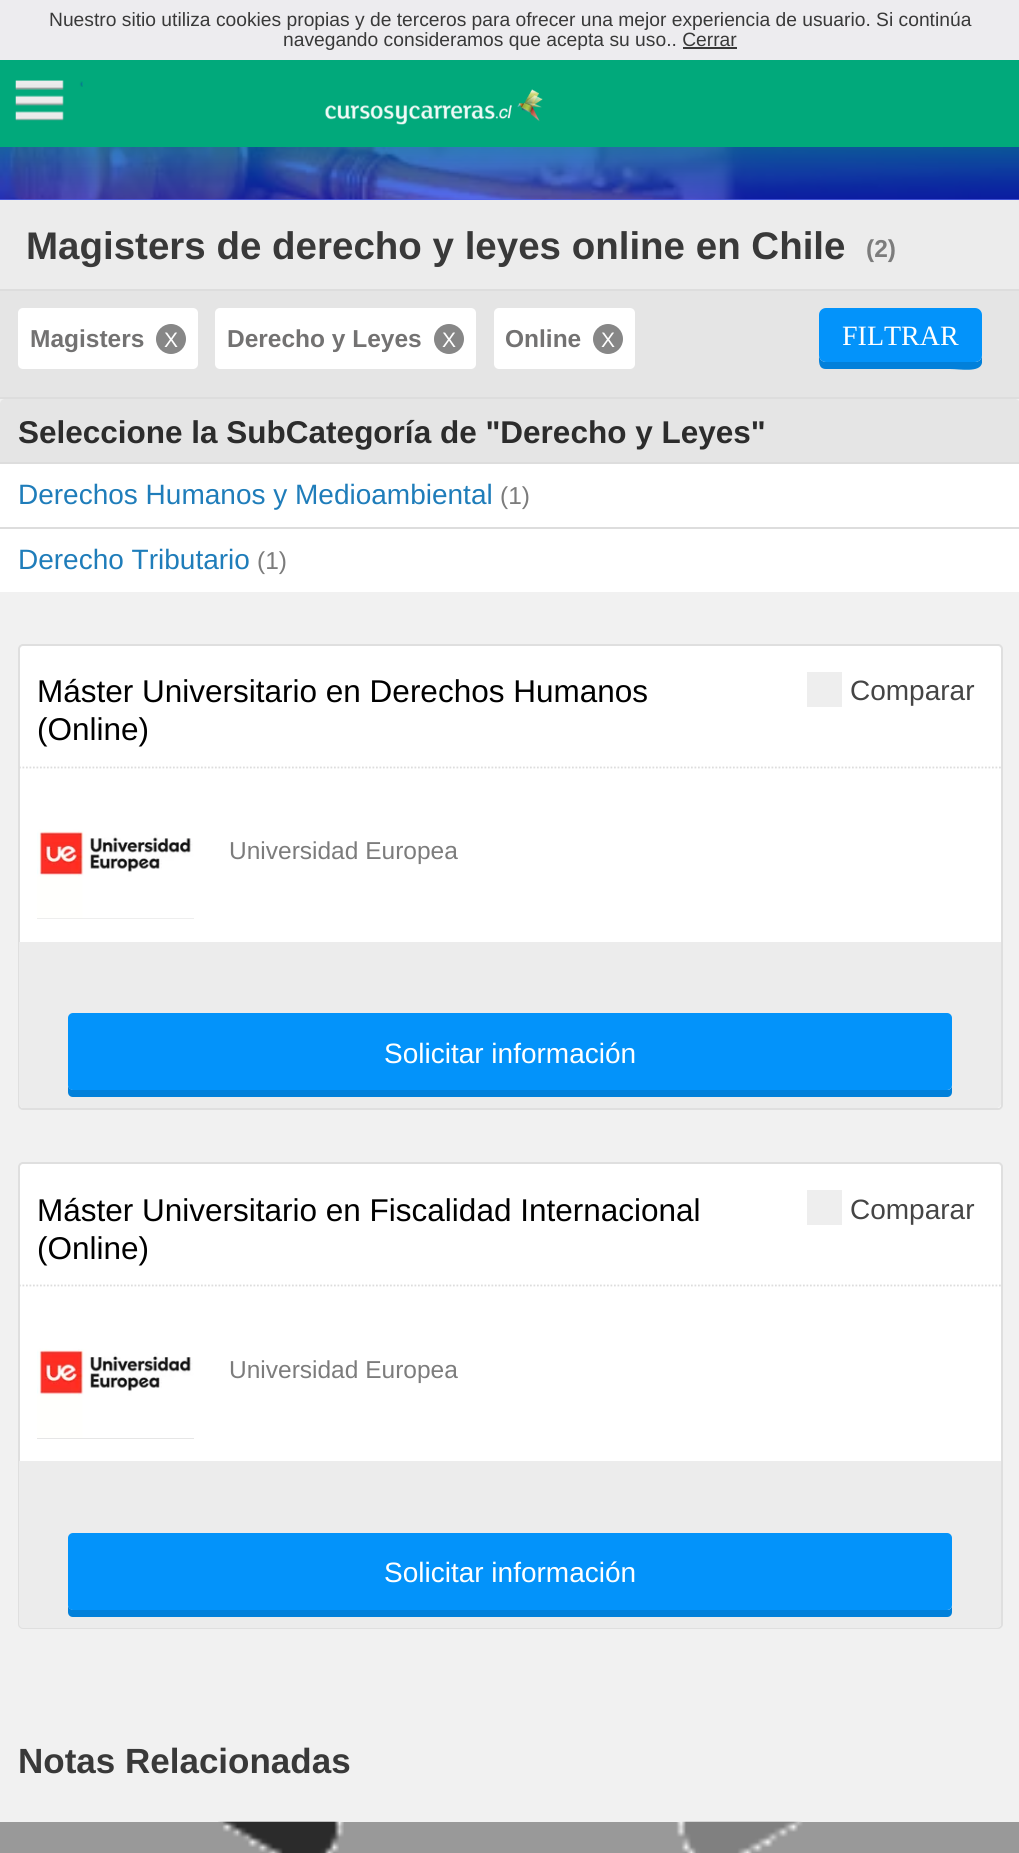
import math
import cairo

surface = cairo.ImageSurface(cairo.FORMAT_RGB24, 1019, 1853)
cr = cairo.Context(surface)
options = cairo.FontOptions()
options.set_hint_metrics(cairo.HINT_METRICS_OFF)
options.set_hint_style(cairo.HINT_STYLE_NONE)
cr.set_font_options(options)
cr.set_miter_limit(4)


def rgb(code):
    cr.set_source_rgb(*(v / 255 for v in bytes.fromhex(code[-6:])))


def rrect(x, y, w, h, r):
    cr.new_sub_path()
    for i, (u, v) in enumerate([(x + w - r, y + h - r), (x + r, y + h - r), (x + r, y + r), (x + w - r, y + r)]):
        cr.arc(u, v, r, i * math.pi / 2, (i + 1) * math.pi / 2)
    cr.close_path()


def image(path, x, y, w, h):
    cr.save()
    cr.set_source_surface(cairo.ImageSurface.create_from_png(path), x, y)
    cr.rectangle(x, y, w, h)
    cr.fill()
    cr.restore()


rgb("#ececec")
cr.paint()
for x, y, w, h, color in [
    (0, 0, 1019, 60, "#edecef"),
    (683, 47, 54, 2, "#393939"),
    (0, 60, 1019, 87, "#01a97b"),
]:
    rgb(color)
    cr.rectangle(x, y, w, h)
    cr.fill()
image("img/1.png", 15, 80, 68, 41)
image("img/2.png", 325, 89, 218, 36)
image("img/3.png", 0, 147, 1019, 53)
gradient = cairo.LinearGradient(510, 89, 510, 226)
gradient.add_color_stop_rgba(0, 0.004, 0.663, 0.471, 1)
gradient.add_color_stop_rgba(1, 0.02, 0, 1, 0.6)
cr.set_source(gradient)
cr.rectangle(0, 147, 1019, 53)
cr.fill()
for x, y, w, h, color in [
    (0, 289, 1019, 2, "#dddddd"),
    (0, 291, 1019, 106, "#e5e5e5"),
    (0, 397, 1019, 2, "#dddddd"),
]:
    rgb(color)
    cr.rectangle(x, y, w, h)
    cr.fill()
rgb("#ffffff")
rrect(18, 308, 180, 61, 5)
cr.fill()
rgb("#878787")
cr.arc(171, 339, 15, 0, 2 * math.pi)
cr.fill()
rgb("#ffffff")
rrect(215, 308, 261, 61, 5)
cr.fill()
rgb("#878787")
cr.arc(449, 339, 15, 0, 2 * math.pi)
cr.fill()
rgb("#ffffff")
rrect(494, 308, 141, 61, 5)
cr.fill()
rgb("#878787")
cr.arc(608, 339, 15, 0, 2 * math.pi)
cr.fill()
rgb("#0280da")
cr.new_path()
cr.move_to(819, 355)
cr.curve_to(819, 361, 818, 369, 826, 369)
cr.line_to(950, 369)
cr.curve_to(960, 369, 980, 373, 982, 363)
cr.line_to(982, 320)
cr.line_to(982, 355)
cr.curve_to(982, 359, 979, 362, 975, 362)
cr.line_to(826, 362)
cr.curve_to(822, 362, 819, 359, 819, 355)
cr.close_path()
cr.fill()
rgb("#0393fa")
rrect(819, 308, 163, 54, 7)
cr.fill()
rgb("#f1f1f1")
cr.rectangle(0, 399, 1019, 1423)
cr.fill()
rgb("#e5e5e5")
rrect(0, 399, 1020, 193, 5)
cr.fill()
for x, y, w, h, color in [
    (0, 464, 1019, 63, "#ffffff"),
    (0, 462, 1019, 2, "#dddddd"),
    (0, 529, 1019, 63, "#ffffff"),
    (0, 527, 1019, 2, "#dddddd"),
]:
    rgb(color)
    cr.rectangle(x, y, w, h)
    cr.fill()
rgb("#ffffff")
rrect(19, 645, 983, 464, 4)
cr.fill_preserve()
rgb("#dfdfdf")
cr.stroke()
cr.new_path()
cr.move_to(19, 767.5)
cr.line_to(1001, 767.5)
rgb("#dddddd")
cr.set_line_width(1.8)
cr.set_dash([1.75, 1.75])
cr.stroke()
rgb("#eeeeee")
cr.rectangle(807, 672, 35, 35)
cr.fill()
rgb("#dddddd")
cr.rectangle(37, 918, 157, 1)
cr.fill()
image("img/4.png", 37, 786, 157, 133)
rgb("#ececec")
cr.new_path()
cr.move_to(19, 942)
cr.line_to(1001, 942)
cr.line_to(1001, 1104)
cr.curve_to(1001, 1106, 999, 1108, 997, 1108)
cr.line_to(23, 1108)
cr.curve_to(21, 1108, 19, 1106, 19, 1104)
cr.close_path()
cr.fill()
rgb("#0280da")
cr.new_path()
cr.move_to(68, 1023)
cr.line_to(68, 1092)
cr.curve_to(68, 1095, 70, 1097, 73, 1097)
cr.line_to(947, 1097)
cr.curve_to(950, 1097, 952, 1095, 952, 1092)
cr.line_to(952, 1085)
cr.curve_to(952, 1088, 950, 1090, 947, 1090)
cr.line_to(74, 1090)
cr.curve_to(71, 1090, 68, 1088, 68, 1085)
cr.close_path()
cr.fill()
rgb("#0393fa")
rrect(68, 1013, 884, 77, 5)
cr.fill()
rgb("#ffffff")
rrect(19, 1163, 983, 465, 4)
cr.fill_preserve()
rgb("#dfdfdf")
cr.set_line_width(2)
cr.set_dash([])
cr.stroke()
cr.new_path()
cr.move_to(19, 1285.5)
cr.line_to(1001, 1285.5)
rgb("#dddddd")
cr.set_line_width(1.8)
cr.set_dash([1.75, 1.75])
cr.stroke()
rgb("#eeeeee")
cr.rectangle(807, 1190, 35, 35)
cr.fill()
rgb("#dddddd")
cr.rectangle(37, 1438, 157, 1)
cr.fill()
image("img/5.png", 37, 1304, 157, 135)
rgb("#ececec")
cr.new_path()
cr.move_to(19, 1461)
cr.line_to(1001, 1461)
cr.line_to(1001, 1624)
cr.curve_to(1001, 1626, 999, 1628, 997, 1628)
cr.line_to(23, 1628)
cr.curve_to(21, 1628, 19, 1626, 19, 1624)
cr.close_path()
cr.fill()
rgb("#0280da")
cr.new_path()
cr.move_to(68, 1543)
cr.line_to(68, 1612)
cr.curve_to(68, 1615, 70, 1617, 73, 1617)
cr.line_to(947, 1617)
cr.curve_to(950, 1617, 952, 1615, 952, 1612)
cr.line_to(952, 1605)
cr.curve_to(952, 1608, 950, 1610, 947, 1610)
cr.line_to(74, 1610)
cr.curve_to(71, 1610, 68, 1608, 68, 1605)
cr.close_path()
cr.fill()
rgb("#0393fa")
rrect(68, 1533, 884, 77, 5)
cr.fill()
rgb("#999999")
cr.rectangle(0, 1822, 1019, 31)
cr.fill()
image("img/6.png", 218, 1821, 585, 32)
cr.select_font_face("Liberation Sans")
cr.set_font_size(19.25)
rgb("#393939")
cr.move_to(49, 26)
cr.show_text("Nuestro sitio utiliza cookies propias y de terceros para ofrecer una mejor experiencia de usuario. Si continúa")
cr.move_to(283, 46)
cr.show_text("navegando consideramos que acepta su uso.. Cerrar")
cr.select_font_face("Liberation Sans", cairo.FONT_SLANT_NORMAL, cairo.FONT_WEIGHT_BOLD)
cr.set_font_size(38.5)
cr.move_to(26, 259)
cr.show_text("Magisters de derecho y leyes online en Chile")
cr.set_font_size(24.5)
rgb("#7c7c7c")
cr.move_to(866, 257)
cr.show_text("(2)")
rgb("#737272")
cr.move_to(30, 347)
cr.show_text("Magisters")
cr.select_font_face("Liberation Sans")
cr.set_font_size(21)
rgb("#ffffff")
cr.move_to(164, 347)
cr.show_text("X")
cr.select_font_face("Liberation Sans", cairo.FONT_SLANT_NORMAL, cairo.FONT_WEIGHT_BOLD)
cr.set_font_size(24.5)
rgb("#737272")
cr.move_to(227, 347)
cr.show_text("Derecho y Leyes")
cr.select_font_face("Liberation Sans")
cr.set_font_size(21)
rgb("#ffffff")
cr.move_to(442, 347)
cr.show_text("X")
cr.select_font_face("Liberation Sans", cairo.FONT_SLANT_NORMAL, cairo.FONT_WEIGHT_BOLD)
cr.set_font_size(24.5)
rgb("#737272")
cr.move_to(505, 347)
cr.show_text("Online")
cr.select_font_face("Liberation Sans")
cr.set_font_size(21)
rgb("#ffffff")
cr.move_to(601, 347)
cr.show_text("X")
cr.select_font_face("Liberation Serif")
cr.set_font_size(28)
cr.move_to(842, 345)
cr.show_text("FILTRAR")
cr.select_font_face("Liberation Sans", cairo.FONT_SLANT_NORMAL, cairo.FONT_WEIGHT_BOLD)
cr.set_font_size(31.5)
rgb("#2c2c2c")
cr.move_to(18, 443)
cr.show_text("Seleccione la SubCategoría de \"Derecho y Leyes\"")
cr.select_font_face("Liberation Sans")
cr.set_font_size(28)
rgb("#1f7dba")
cr.move_to(18, 504)
cr.show_text("Derechos Humanos y Medioambiental")
cr.set_font_size(24.5)
rgb("#7c7c7c")
cr.move_to(500, 504)
cr.show_text("(1)")
cr.set_font_size(28)
rgb("#1f7dba")
cr.move_to(18, 569)
cr.show_text("Derecho Tributario")
cr.set_font_size(24.5)
rgb("#7c7c7c")
cr.move_to(257, 569)
cr.show_text("(1)")
cr.set_font_size(31.5)
rgb("#000000")
cr.move_to(37, 702)
cr.show_text("Máster Universitario en Derechos Humanos")
cr.move_to(37, 740)
cr.show_text("(Online)")
cr.set_font_size(28)
rgb("#454545")
cr.move_to(850, 700)
cr.show_text("Comparar")
cr.set_font_size(24.5)
rgb("#7c7c7c")
cr.move_to(229, 859)
cr.show_text("Universidad Europea")
cr.set_font_size(28)
rgb("#ffffff")
cr.move_to(384, 1063)
cr.show_text("Solicitar información")
cr.set_font_size(31.5)
rgb("#000000")
cr.move_to(37, 1221)
cr.show_text("Máster Universitario en Fiscalidad Internacional")
cr.move_to(37, 1259)
cr.show_text("(Online)")
cr.set_font_size(28)
rgb("#454545")
cr.move_to(850, 1219)
cr.show_text("Comparar")
cr.set_font_size(24.5)
rgb("#7c7c7c")
cr.move_to(229, 1378)
cr.show_text("Universidad Europea")
cr.set_font_size(28)
rgb("#ffffff")
cr.move_to(384, 1582)
cr.show_text("Solicitar información")
cr.select_font_face("Liberation Sans", cairo.FONT_SLANT_NORMAL, cairo.FONT_WEIGHT_BOLD)
cr.set_font_size(35)
rgb("#393939")
cr.move_to(18, 1773)
cr.show_text("Notas Relacionadas")
surface.write_to_png("page.png")
